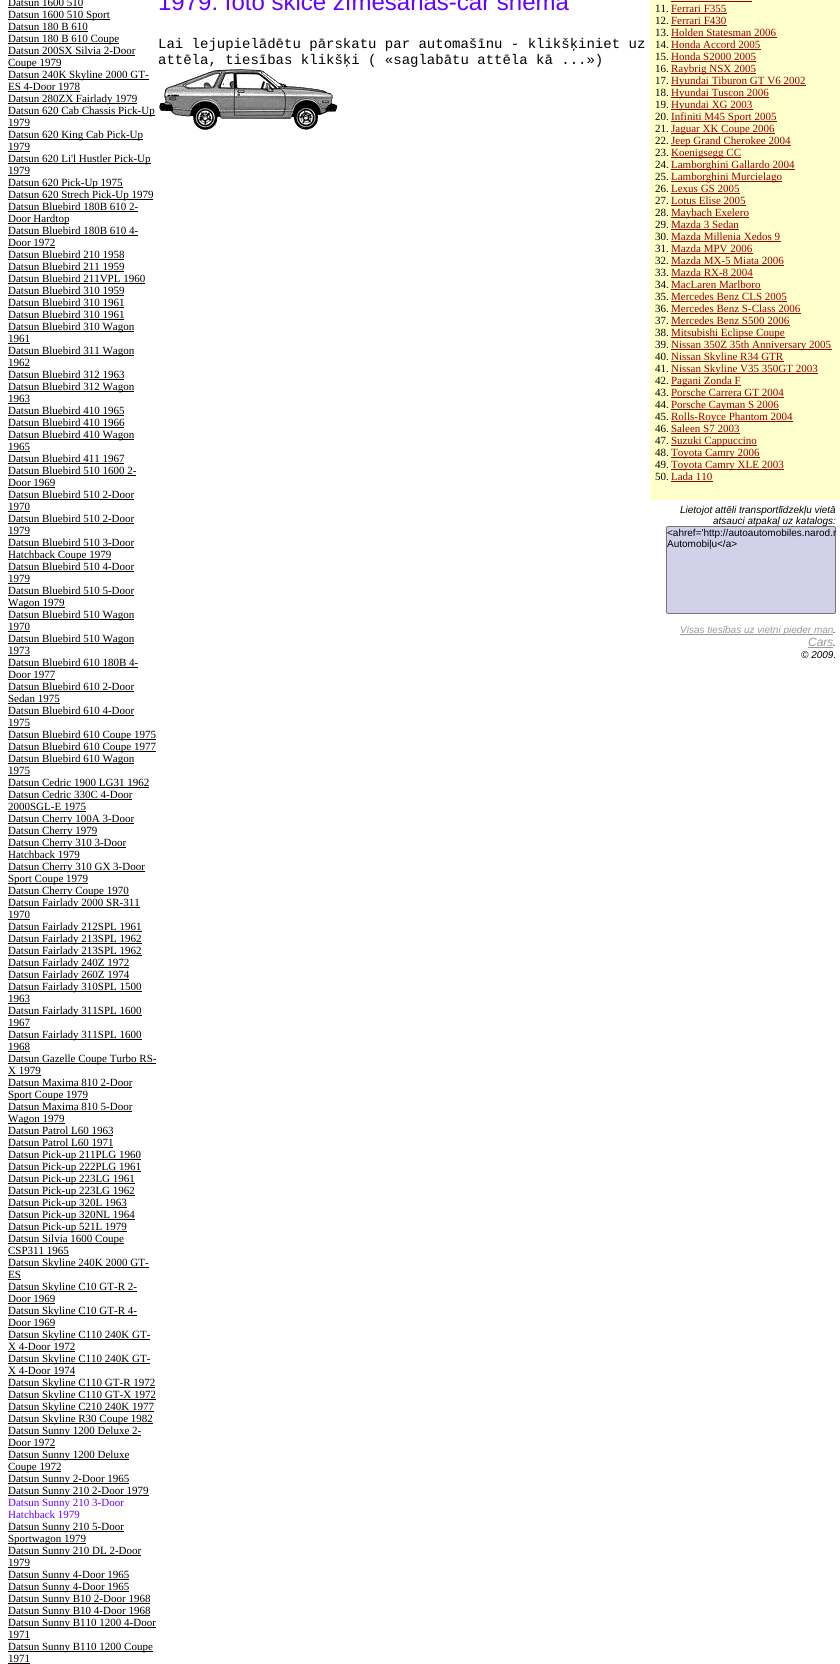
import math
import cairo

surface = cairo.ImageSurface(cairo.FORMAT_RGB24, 840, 1664)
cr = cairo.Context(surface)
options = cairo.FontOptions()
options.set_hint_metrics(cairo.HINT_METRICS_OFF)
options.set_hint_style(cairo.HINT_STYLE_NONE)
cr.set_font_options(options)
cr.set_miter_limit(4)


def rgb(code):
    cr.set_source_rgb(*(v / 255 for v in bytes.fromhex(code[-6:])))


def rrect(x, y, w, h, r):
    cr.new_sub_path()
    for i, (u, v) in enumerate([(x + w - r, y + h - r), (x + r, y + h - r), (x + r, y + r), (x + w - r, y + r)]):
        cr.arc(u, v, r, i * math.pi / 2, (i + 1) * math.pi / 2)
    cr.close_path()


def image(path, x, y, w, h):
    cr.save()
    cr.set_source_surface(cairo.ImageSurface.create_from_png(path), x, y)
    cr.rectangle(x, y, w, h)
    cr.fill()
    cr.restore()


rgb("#ffffff")
cr.paint()
for x, y, w, h, color in [
    (8, 7, 75, 1, "#000000"),
    (8, 19, 102, 1, "#000000"),
    (8, 31, 80, 1, "#000000"),
    (8, 43, 111, 1, "#000000"),
    (8, 55, 127, 1, "#000000"),
    (8, 67, 53, 1, "#000000"),
    (8, 79, 141, 1, "#000000"),
    (8, 91, 72, 1, "#000000"),
    (8, 103, 129, 1, "#000000"),
    (8, 115, 147, 1, "#000000"),
    (8, 127, 22, 1, "#000000"),
    (8, 139, 135, 1, "#000000"),
    (8, 151, 22, 1, "#000000"),
    (8, 163, 143, 1, "#000000"),
    (8, 175, 22, 1, "#000000"),
    (8, 187, 115, 1, "#000000"),
    (8, 199, 145, 1, "#000000"),
    (8, 211, 130, 1, "#000000"),
    (8, 223, 61, 1, "#000000"),
    (8, 235, 130, 1, "#000000"),
    (8, 247, 47, 1, "#000000"),
    (8, 259, 116, 1, "#000000"),
    (8, 271, 116, 1, "#000000"),
    (8, 283, 137, 1, "#000000"),
    (8, 295, 116, 1, "#000000"),
    (8, 307, 116, 1, "#000000"),
    (8, 319, 116, 1, "#000000"),
    (8, 331, 126, 1, "#000000"),
    (8, 343, 22, 1, "#000000"),
    (8, 355, 126, 1, "#000000"),
    (8, 367, 22, 1, "#000000"),
    (8, 379, 116, 1, "#000000"),
    (8, 391, 126, 1, "#000000"),
    (8, 403, 22, 1, "#000000"),
    (8, 415, 116, 1, "#000000"),
    (8, 427, 116, 1, "#000000"),
    (8, 439, 126, 1, "#000000"),
    (8, 451, 22, 1, "#000000"),
    (8, 463, 116, 1, "#000000"),
    (8, 475, 128, 1, "#000000"),
    (8, 487, 47, 1, "#000000"),
    (8, 499, 126, 1, "#000000"),
    (8, 511, 22, 1, "#000000"),
    (8, 523, 126, 1, "#000000"),
    (8, 535, 22, 1, "#000000"),
    (8, 547, 126, 1, "#000000"),
    (8, 559, 103, 1, "#000000"),
    (8, 571, 126, 1, "#000000"),
    (8, 583, 22, 1, "#000000"),
    (8, 595, 126, 1, "#000000"),
    (8, 607, 57, 1, "#000000"),
    (8, 619, 126, 1, "#000000"),
    (8, 631, 22, 1, "#000000"),
    (8, 643, 126, 1, "#000000"),
    (8, 655, 22, 1, "#000000"),
    (8, 667, 130, 1, "#000000"),
    (8, 679, 47, 1, "#000000"),
    (8, 691, 126, 1, "#000000"),
    (8, 703, 52, 1, "#000000"),
    (8, 715, 126, 1, "#000000"),
    (8, 727, 22, 1, "#000000"),
    (8, 739, 148, 1, "#000000"),
    (8, 751, 148, 1, "#000000"),
    (8, 763, 126, 1, "#000000"),
    (8, 775, 22, 1, "#000000"),
    (8, 787, 141, 1, "#000000"),
    (8, 799, 124, 1, "#000000"),
    (8, 811, 78, 1, "#000000"),
    (8, 823, 126, 1, "#000000"),
    (8, 835, 89, 1, "#000000"),
    (8, 847, 118, 1, "#000000"),
    (8, 859, 72, 1, "#000000"),
    (8, 871, 137, 1, "#000000"),
    (8, 883, 80, 1, "#000000"),
    (8, 895, 121, 1, "#000000"),
    (8, 907, 132, 1, "#000000"),
    (8, 919, 22, 1, "#000000"),
    (8, 931, 134, 1, "#000000"),
    (8, 943, 134, 1, "#000000"),
    (8, 955, 134, 1, "#000000"),
    (8, 967, 121, 1, "#000000"),
    (8, 979, 121, 1, "#000000"),
    (8, 991, 134, 1, "#000000"),
    (8, 1003, 22, 1, "#000000"),
    (8, 1015, 134, 1, "#000000"),
    (8, 1027, 22, 1, "#000000"),
    (8, 1039, 134, 1, "#000000"),
    (8, 1051, 22, 1, "#000000"),
    (8, 1063, 148, 1, "#000000"),
    (8, 1075, 33, 1, "#000000"),
    (8, 1087, 124, 1, "#000000"),
    (8, 1099, 80, 1, "#000000"),
    (8, 1111, 124, 1, "#000000"),
    (8, 1123, 57, 1, "#000000"),
    (8, 1135, 105, 1, "#000000"),
    (8, 1147, 105, 1, "#000000"),
    (8, 1159, 133, 1, "#000000"),
    (8, 1171, 133, 1, "#000000"),
    (8, 1183, 127, 1, "#000000"),
    (8, 1195, 127, 1, "#000000"),
    (8, 1207, 119, 1, "#000000"),
    (8, 1219, 127, 1, "#000000"),
    (8, 1231, 119, 1, "#000000"),
    (8, 1243, 116, 1, "#000000"),
    (8, 1255, 61, 1, "#000000"),
    (8, 1267, 141, 1, "#000000"),
    (8, 1279, 13, 1, "#000000"),
    (8, 1291, 129, 1, "#000000"),
    (8, 1303, 47, 1, "#000000"),
    (8, 1315, 129, 1, "#000000"),
    (8, 1327, 47, 1, "#000000"),
    (8, 1339, 142, 1, "#000000"),
    (8, 1351, 67, 1, "#000000"),
    (8, 1363, 142, 1, "#000000"),
    (8, 1375, 67, 1, "#000000"),
    (8, 1387, 147, 1, "#000000"),
    (8, 1399, 148, 1, "#000000"),
    (8, 1411, 146, 1, "#000000"),
    (8, 1423, 145, 1, "#000000"),
    (8, 1435, 133, 1, "#000000"),
    (8, 1447, 47, 1, "#000000"),
    (8, 1459, 121, 1, "#000000"),
    (8, 1471, 53, 1, "#000000"),
    (8, 1483, 121, 1, "#000000"),
    (8, 1495, 141, 1, "#000000"),
    (8, 1531, 116, 1, "#000000"),
    (8, 1543, 78, 1, "#000000"),
    (8, 1555, 133, 1, "#000000"),
    (8, 1567, 22, 1, "#000000"),
    (8, 1579, 121, 1, "#000000"),
    (8, 1591, 121, 1, "#000000"),
    (8, 1603, 142, 1, "#000000"),
    (8, 1615, 142, 1, "#000000"),
    (8, 1627, 148, 1, "#000000"),
    (8, 1639, 22, 1, "#000000"),
    (8, 1651, 145, 1, "#000000"),
    (8, 1663, 22, 1, "#000000"),
]:
    rgb(color)
    cr.rectangle(x, y, w, h)
    cr.fill()
image("img/1.png", 159, 69, 179, 61)
for x, y, w, h, color in [
    (650, 0, 190, 500, "#ffffcc"),
    (671, 1, 81, 1, "#990000"),
    (671, 13, 56, 1, "#990000"),
    (671, 25, 56, 1, "#990000"),
    (671, 37, 106, 1, "#990000"),
    (671, 49, 90, 1, "#990000"),
    (671, 61, 85, 1, "#990000"),
    (671, 73, 85, 1, "#990000"),
    (671, 85, 135, 1, "#990000"),
    (671, 97, 98, 1, "#990000"),
    (671, 109, 82, 1, "#990000"),
    (671, 121, 106, 1, "#990000"),
    (671, 133, 104, 1, "#990000"),
    (671, 145, 120, 1, "#990000"),
    (671, 157, 70, 1, "#990000"),
    (671, 169, 124, 1, "#990000"),
    (671, 181, 111, 1, "#990000"),
    (671, 193, 69, 1, "#990000"),
    (671, 205, 75, 1, "#990000"),
    (671, 217, 78, 1, "#990000"),
    (671, 229, 68, 1, "#990000"),
    (671, 241, 110, 1, "#990000"),
    (671, 253, 82, 1, "#990000"),
    (671, 265, 113, 1, "#990000"),
    (671, 277, 82, 1, "#990000"),
    (671, 289, 90, 1, "#990000"),
    (671, 301, 116, 1, "#990000"),
    (671, 313, 130, 1, "#990000"),
    (671, 325, 119, 1, "#990000"),
    (671, 337, 114, 1, "#990000"),
    (671, 349, 161, 1, "#990000"),
    (671, 361, 113, 1, "#990000"),
    (671, 373, 147, 1, "#990000"),
    (671, 385, 70, 1, "#990000"),
    (671, 397, 113, 1, "#990000"),
    (671, 409, 108, 1, "#990000"),
    (671, 421, 122, 1, "#990000"),
    (671, 433, 69, 1, "#990000"),
    (671, 445, 86, 1, "#990000"),
    (671, 457, 89, 1, "#990000"),
    (671, 469, 113, 1, "#990000"),
    (671, 481, 42, 1, "#990000"),
    (680, 634, 153, 1, "#999999"),
    (808, 647, 25, 1, "#999999"),
]:
    rgb(color)
    cr.rectangle(x, y, w, h)
    cr.fill()
cr.select_font_face("Liberation Serif")
cr.set_font_size(11)
rgb("#000000")
for x, y, s in [
    (8, 6, "Datsun 1600 510"),
    (8, 18, "Datsun 1600 510 Sport"),
    (8, 30, "Datsun 180 B 610"),
    (8, 42, "Datsun 180 B 610 Coupe"),
    (8, 54, "Datsun 200SX Silvia 2-Door"),
    (8, 66, "Coupe 1979"),
    (8, 78, "Datsun 240K Skyline 2000 GT-"),
    (8, 90, "ES 4-Door 1978"),
    (8, 102, "Datsun 280ZX Fairlady 1979"),
    (8, 114, "Datsun 620 Cab Chassis Pick-Up"),
    (8, 126, "1979"),
    (8, 138, "Datsun 620 King Cab Pick-Up"),
    (8, 150, "1979"),
    (8, 162, "Datsun 620 Li'l Hustler Pick-Up"),
    (8, 174, "1979"),
    (8, 186, "Datsun 620 Pick-Up 1975"),
    (8, 198, "Datsun 620 Strech Pick-Up 1979"),
    (8, 210, "Datsun Bluebird 180B 610 2-"),
    (8, 222, "Door Hardtop"),
    (8, 234, "Datsun Bluebird 180B 610 4-"),
    (8, 246, "Door 1972"),
    (8, 258, "Datsun Bluebird 210 1958"),
    (8, 270, "Datsun Bluebird 211 1959"),
    (8, 282, "Datsun Bluebird 211VPL 1960"),
    (8, 294, "Datsun Bluebird 310 1959"),
    (8, 306, "Datsun Bluebird 310 1961"),
    (8, 318, "Datsun Bluebird 310 1961"),
    (8, 330, "Datsun Bluebird 310 Wagon"),
    (8, 342, "1961"),
    (8, 354, "Datsun Bluebird 311 Wagon"),
    (8, 366, "1962"),
    (8, 378, "Datsun Bluebird 312 1963"),
    (8, 390, "Datsun Bluebird 312 Wagon"),
    (8, 402, "1963"),
    (8, 414, "Datsun Bluebird 410 1965"),
    (8, 426, "Datsun Bluebird 410 1966"),
    (8, 438, "Datsun Bluebird 410 Wagon"),
    (8, 450, "1965"),
    (8, 462, "Datsun Bluebird 411 1967"),
    (8, 474, "Datsun Bluebird 510 1600 2-"),
    (8, 486, "Door 1969"),
    (8, 498, "Datsun Bluebird 510 2-Door"),
    (8, 510, "1970"),
    (8, 522, "Datsun Bluebird 510 2-Door"),
    (8, 534, "1979"),
    (8, 546, "Datsun Bluebird 510 3-Door"),
    (8, 558, "Hatchback Coupe 1979"),
    (8, 570, "Datsun Bluebird 510 4-Door"),
    (8, 582, "1979"),
    (8, 594, "Datsun Bluebird 510 5-Door"),
    (8, 606, "Wagon 1979"),
    (8, 618, "Datsun Bluebird 510 Wagon"),
    (8, 630, "1970"),
    (8, 642, "Datsun Bluebird 510 Wagon"),
    (8, 654, "1973"),
    (8, 666, "Datsun Bluebird 610 180B 4-"),
    (8, 678, "Door 1977"),
    (8, 690, "Datsun Bluebird 610 2-Door"),
    (8, 702, "Sedan 1975"),
    (8, 714, "Datsun Bluebird 610 4-Door"),
    (8, 726, "1975"),
    (8, 738, "Datsun Bluebird 610 Coupe 1975"),
    (8, 750, "Datsun Bluebird 610 Coupe 1977"),
    (8, 762, "Datsun Bluebird 610 Wagon"),
    (8, 774, "1975"),
    (8, 786, "Datsun Cedric 1900 LG31 1962"),
    (8, 798, "Datsun Cedric 330C 4-Door"),
    (8, 810, "2000SGL-E 1975"),
    (8, 822, "Datsun Cherry 100A 3-Door"),
    (8, 834, "Datsun Cherry 1979"),
    (8, 846, "Datsun Cherry 310 3-Door"),
    (8, 858, "Hatchback 1979"),
    (8, 870, "Datsun Cherry 310 GX 3-Door"),
    (8, 882, "Sport Coupe 1979"),
    (8, 894, "Datsun Cherry Coupe 1970"),
    (8, 906, "Datsun Fairlady 2000 SR-311"),
    (8, 918, "1970"),
    (8, 930, "Datsun Fairlady 212SPL 1961"),
    (8, 942, "Datsun Fairlady 213SPL 1962"),
    (8, 954, "Datsun Fairlady 213SPL 1962"),
    (8, 966, "Datsun Fairlady 240Z 1972"),
    (8, 978, "Datsun Fairlady 260Z 1974"),
    (8, 990, "Datsun Fairlady 310SPL 1500"),
    (8, 1002, "1963"),
    (8, 1014, "Datsun Fairlady 311SPL 1600"),
    (8, 1026, "1967"),
    (8, 1038, "Datsun Fairlady 311SPL 1600"),
    (8, 1050, "1968"),
    (8, 1062, "Datsun Gazelle Coupe Turbo RS-"),
    (8, 1074, "X 1979"),
    (8, 1086, "Datsun Maxima 810 2-Door"),
    (8, 1098, "Sport Coupe 1979"),
    (8, 1110, "Datsun Maxima 810 5-Door"),
    (8, 1122, "Wagon 1979"),
    (8, 1134, "Datsun Patrol L60 1963"),
    (8, 1146, "Datsun Patrol L60 1971"),
    (8, 1158, "Datsun Pick-up 211PLG 1960"),
    (8, 1170, "Datsun Pick-up 222PLG 1961"),
    (8, 1182, "Datsun Pick-up 223LG 1961"),
    (8, 1194, "Datsun Pick-up 223LG 1962"),
    (8, 1206, "Datsun Pick-up 320L 1963"),
    (8, 1218, "Datsun Pick-up 320NL 1964"),
    (8, 1230, "Datsun Pick-up 521L 1979"),
    (8, 1242, "Datsun Silvia 1600 Coupe"),
    (8, 1254, "CSP311 1965"),
    (8, 1266, "Datsun Skyline 240K 2000 GT-"),
    (8, 1278, "ES"),
    (8, 1290, "Datsun Skyline C10 GT-R 2-"),
    (8, 1302, "Door 1969"),
    (8, 1314, "Datsun Skyline C10 GT-R 4-"),
    (8, 1326, "Door 1969"),
    (8, 1338, "Datsun Skyline C110 240K GT-"),
    (8, 1350, "X 4-Door 1972"),
    (8, 1362, "Datsun Skyline C110 240K GT-"),
    (8, 1374, "X 4-Door 1974"),
    (8, 1386, "Datsun Skyline C110 GT-R 1972"),
    (8, 1398, "Datsun Skyline C110 GT-X 1972"),
    (8, 1410, "Datsun Skyline C210 240K 1977"),
    (8, 1422, "Datsun Skyline R30 Coupe 1982"),
    (8, 1434, "Datsun Sunny 1200 Deluxe 2-"),
    (8, 1446, "Door 1972"),
    (8, 1458, "Datsun Sunny 1200 Deluxe"),
    (8, 1470, "Coupe 1972"),
    (8, 1482, "Datsun Sunny 2-Door 1965"),
    (8, 1494, "Datsun Sunny 210 2-Door 1979"),
]:
    cr.move_to(x, y)
    cr.show_text(s)
rgb("#6600ff")
cr.move_to(8, 1506)
cr.show_text("Datsun Sunny 210 3-Door")
cr.move_to(8, 1518)
cr.show_text("Hatchback 1979")
rgb("#000000")
for x, y, s in [
    (8, 1530, "Datsun Sunny 210 5-Door"),
    (8, 1542, "Sportwagon 1979"),
    (8, 1554, "Datsun Sunny 210 DL 2-Door"),
    (8, 1566, "1979"),
    (8, 1578, "Datsun Sunny 4-Door 1965"),
    (8, 1590, "Datsun Sunny 4-Door 1965"),
    (8, 1602, "Datsun Sunny B10 2-Door 1968"),
    (8, 1614, "Datsun Sunny B10 4-Door 1968"),
    (8, 1626, "Datsun Sunny B110 1200 4-Door"),
    (8, 1638, "1971"),
    (8, 1650, "Datsun Sunny B110 1200 Coupe"),
    (8, 1662, "1971"),
]:
    cr.move_to(x, y)
    cr.show_text(s)
cr.select_font_face("Liberation Sans")
cr.set_font_size(24)
rgb("#6600ff")
cr.move_to(158, 10)
cr.show_text("1979: foto skice zīmēšanas-car shēma")
cr.select_font_face("Liberation Mono")
cr.set_font_size(14)
rgb("#000000")
cr.move_to(158, 48)
cr.show_text("Lai lejupielādētu pārskatu par automašīnu - klikšķiniet uz")
cr.move_to(158, 64)
cr.show_text("attēla, tiesības klikšķi ( «saglabātu attēla kā ...»)")
cr.select_font_face("Liberation Serif")
cr.set_font_size(11)
cr.move_to(655, 12)
cr.show_text("11.")
rgb("#990000")
cr.move_to(671, 12)
cr.show_text("Ferrari F355")
rgb("#000000")
cr.move_to(655, 24)
cr.show_text("12.")
rgb("#990000")
cr.move_to(671, 24)
cr.show_text("Ferrari F430")
rgb("#000000")
cr.move_to(655, 36)
cr.show_text("13.")
rgb("#990000")
cr.move_to(671, 36)
cr.show_text("Holden Statesman 2006")
rgb("#000000")
cr.move_to(655, 48)
cr.show_text("14.")
rgb("#990000")
cr.move_to(671, 48)
cr.show_text("Honda Accord 2005")
rgb("#000000")
cr.move_to(655, 60)
cr.show_text("15.")
rgb("#990000")
cr.move_to(671, 60)
cr.show_text("Honda S2000 2005")
rgb("#000000")
cr.move_to(655, 72)
cr.show_text("16.")
rgb("#990000")
cr.move_to(671, 72)
cr.show_text("Raybrig NSX 2005")
rgb("#000000")
cr.move_to(655, 84)
cr.show_text("17.")
rgb("#990000")
cr.move_to(671, 84)
cr.show_text("Hyundai Tiburon GT V6 2002")
rgb("#000000")
cr.move_to(655, 96)
cr.show_text("18.")
rgb("#990000")
cr.move_to(671, 96)
cr.show_text("Hyundai Tuscon 2006")
rgb("#000000")
cr.move_to(655, 108)
cr.show_text("19.")
rgb("#990000")
cr.move_to(671, 108)
cr.show_text("Hyundai XG 2003")
rgb("#000000")
cr.move_to(655, 120)
cr.show_text("20.")
rgb("#990000")
cr.move_to(671, 120)
cr.show_text("Infiniti M45 Sport 2005")
rgb("#000000")
cr.move_to(655, 132)
cr.show_text("21.")
rgb("#990000")
cr.move_to(671, 132)
cr.show_text("Jaguar XK Coupe 2006")
rgb("#000000")
cr.move_to(655, 144)
cr.show_text("22.")
rgb("#990000")
cr.move_to(671, 144)
cr.show_text("Jeep Grand Cherokee 2004")
rgb("#000000")
cr.move_to(655, 156)
cr.show_text("23.")
rgb("#990000")
cr.move_to(671, 156)
cr.show_text("Koenigsegg CC")
rgb("#000000")
cr.move_to(655, 168)
cr.show_text("24.")
rgb("#990000")
cr.move_to(671, 168)
cr.show_text("Lamborghini Gallardo 2004")
rgb("#000000")
cr.move_to(655, 180)
cr.show_text("25.")
rgb("#990000")
cr.move_to(671, 180)
cr.show_text("Lamborghini Murcielago")
rgb("#000000")
cr.move_to(655, 192)
cr.show_text("26.")
rgb("#990000")
cr.move_to(671, 192)
cr.show_text("Lexus GS 2005")
rgb("#000000")
cr.move_to(655, 204)
cr.show_text("27.")
rgb("#990000")
cr.move_to(671, 204)
cr.show_text("Lotus Elise 2005")
rgb("#000000")
cr.move_to(655, 216)
cr.show_text("28.")
rgb("#990000")
cr.move_to(671, 216)
cr.show_text("Maybach Exelero")
rgb("#000000")
cr.move_to(655, 228)
cr.show_text("29.")
rgb("#990000")
cr.move_to(671, 228)
cr.show_text("Mazda 3 Sedan")
rgb("#000000")
cr.move_to(655, 240)
cr.show_text("30.")
rgb("#990000")
cr.move_to(671, 240)
cr.show_text("Mazda Millenia Xedos 9")
rgb("#000000")
cr.move_to(655, 252)
cr.show_text("31.")
rgb("#990000")
cr.move_to(671, 252)
cr.show_text("Mazda MPV 2006")
rgb("#000000")
cr.move_to(655, 264)
cr.show_text("32.")
rgb("#990000")
cr.move_to(671, 264)
cr.show_text("Mazda MX-5 Miata 2006")
rgb("#000000")
cr.move_to(655, 276)
cr.show_text("33.")
rgb("#990000")
cr.move_to(671, 276)
cr.show_text("Mazda RX-8 2004")
rgb("#000000")
cr.move_to(655, 288)
cr.show_text("34.")
rgb("#990000")
cr.move_to(671, 288)
cr.show_text("MacLaren Marlboro")
rgb("#000000")
cr.move_to(655, 300)
cr.show_text("35.")
rgb("#990000")
cr.move_to(671, 300)
cr.show_text("Mercedes Benz CLS 2005")
rgb("#000000")
cr.move_to(655, 312)
cr.show_text("36.")
rgb("#990000")
cr.move_to(671, 312)
cr.show_text("Mercedes Benz S-Class 2006")
rgb("#000000")
cr.move_to(655, 324)
cr.show_text("37.")
rgb("#990000")
cr.move_to(671, 324)
cr.show_text("Mercedes Benz S500 2006")
rgb("#000000")
cr.move_to(655, 336)
cr.show_text("38.")
rgb("#990000")
cr.move_to(671, 336)
cr.show_text("Mitsubishi Eclipse Coupe")
rgb("#000000")
cr.move_to(655, 348)
cr.show_text("39.")
rgb("#990000")
cr.move_to(671, 348)
cr.show_text("Nissan 350Z 35th Anniversary 2005")
rgb("#000000")
cr.move_to(655, 360)
cr.show_text("40.")
rgb("#990000")
cr.move_to(671, 360)
cr.show_text("Nissan Skyline R34 GTR")
rgb("#000000")
cr.move_to(655, 372)
cr.show_text("41.")
rgb("#990000")
cr.move_to(671, 372)
cr.show_text("Nissan Skyline V35 350GT 2003")
rgb("#000000")
cr.move_to(655, 384)
cr.show_text("42.")
rgb("#990000")
cr.move_to(671, 384)
cr.show_text("Pagani Zonda F")
rgb("#000000")
cr.move_to(655, 396)
cr.show_text("43.")
rgb("#990000")
cr.move_to(671, 396)
cr.show_text("Porsche Carrera GT 2004")
rgb("#000000")
cr.move_to(655, 408)
cr.show_text("44.")
rgb("#990000")
cr.move_to(671, 408)
cr.show_text("Porsche Cayman S 2006")
rgb("#000000")
cr.move_to(655, 420)
cr.show_text("45.")
rgb("#990000")
cr.move_to(671, 420)
cr.show_text("Rolls-Royce Phantom 2004")
rgb("#000000")
cr.move_to(655, 432)
cr.show_text("46.")
rgb("#990000")
cr.move_to(671, 432)
cr.show_text("Saleen S7 2003")
rgb("#000000")
cr.move_to(655, 444)
cr.show_text("47.")
rgb("#990000")
cr.move_to(671, 444)
cr.show_text("Suzuki Cappuccino")
rgb("#000000")
cr.move_to(655, 456)
cr.show_text("48.")
rgb("#990000")
cr.move_to(671, 456)
cr.show_text("Toyota Camry 2006")
rgb("#000000")
cr.move_to(655, 468)
cr.show_text("49.")
rgb("#990000")
cr.move_to(671, 468)
cr.show_text("Toyota Camry XLE 2003")
rgb("#000000")
cr.move_to(655, 480)
cr.show_text("50.")
rgb("#990000")
cr.move_to(671, 480)
cr.show_text("Lada 110")
cr.select_font_face("Liberation Sans", cairo.FONT_SLANT_ITALIC)
cr.set_font_size(10)
rgb("#000000")
cr.move_to(680, 513)
cr.show_text("Lietojot attēli transportlīdzekļu vietā")
cr.move_to(713, 524)
cr.show_text("atsauci atpakaļ uz katalogs:")
rgb("#d1d1e9")
rrect(666.5, 526.5, 169, 87, 1.5)
cr.fill_preserve()
rgb("#767676")
cr.set_line_width(1)
cr.stroke()
cr.select_font_face("Liberation Sans")
rgb("#000000")
cr.move_to(667, 536)
cr.show_text("<ahref='http://autoautomobiles.narod.r")
cr.move_to(667, 547)
cr.show_text("Automobiļu</a>")
cr.select_font_face("Liberation Sans", cairo.FONT_SLANT_ITALIC)
rgb("#999999")
cr.move_to(680, 633)
cr.show_text("Visas tiesības uz vietni pieder man")
rgb("#000000")
cr.move_to(833, 633)
cr.show_text(".")
cr.set_font_size(12)
rgb("#999999")
cr.move_to(808, 646)
cr.show_text("Cars")
cr.set_font_size(10)
rgb("#000000")
cr.move_to(833, 646)
cr.show_text(".")
cr.move_to(801, 658)
cr.show_text("© 2009.")
surface.write_to_png("page.png")
